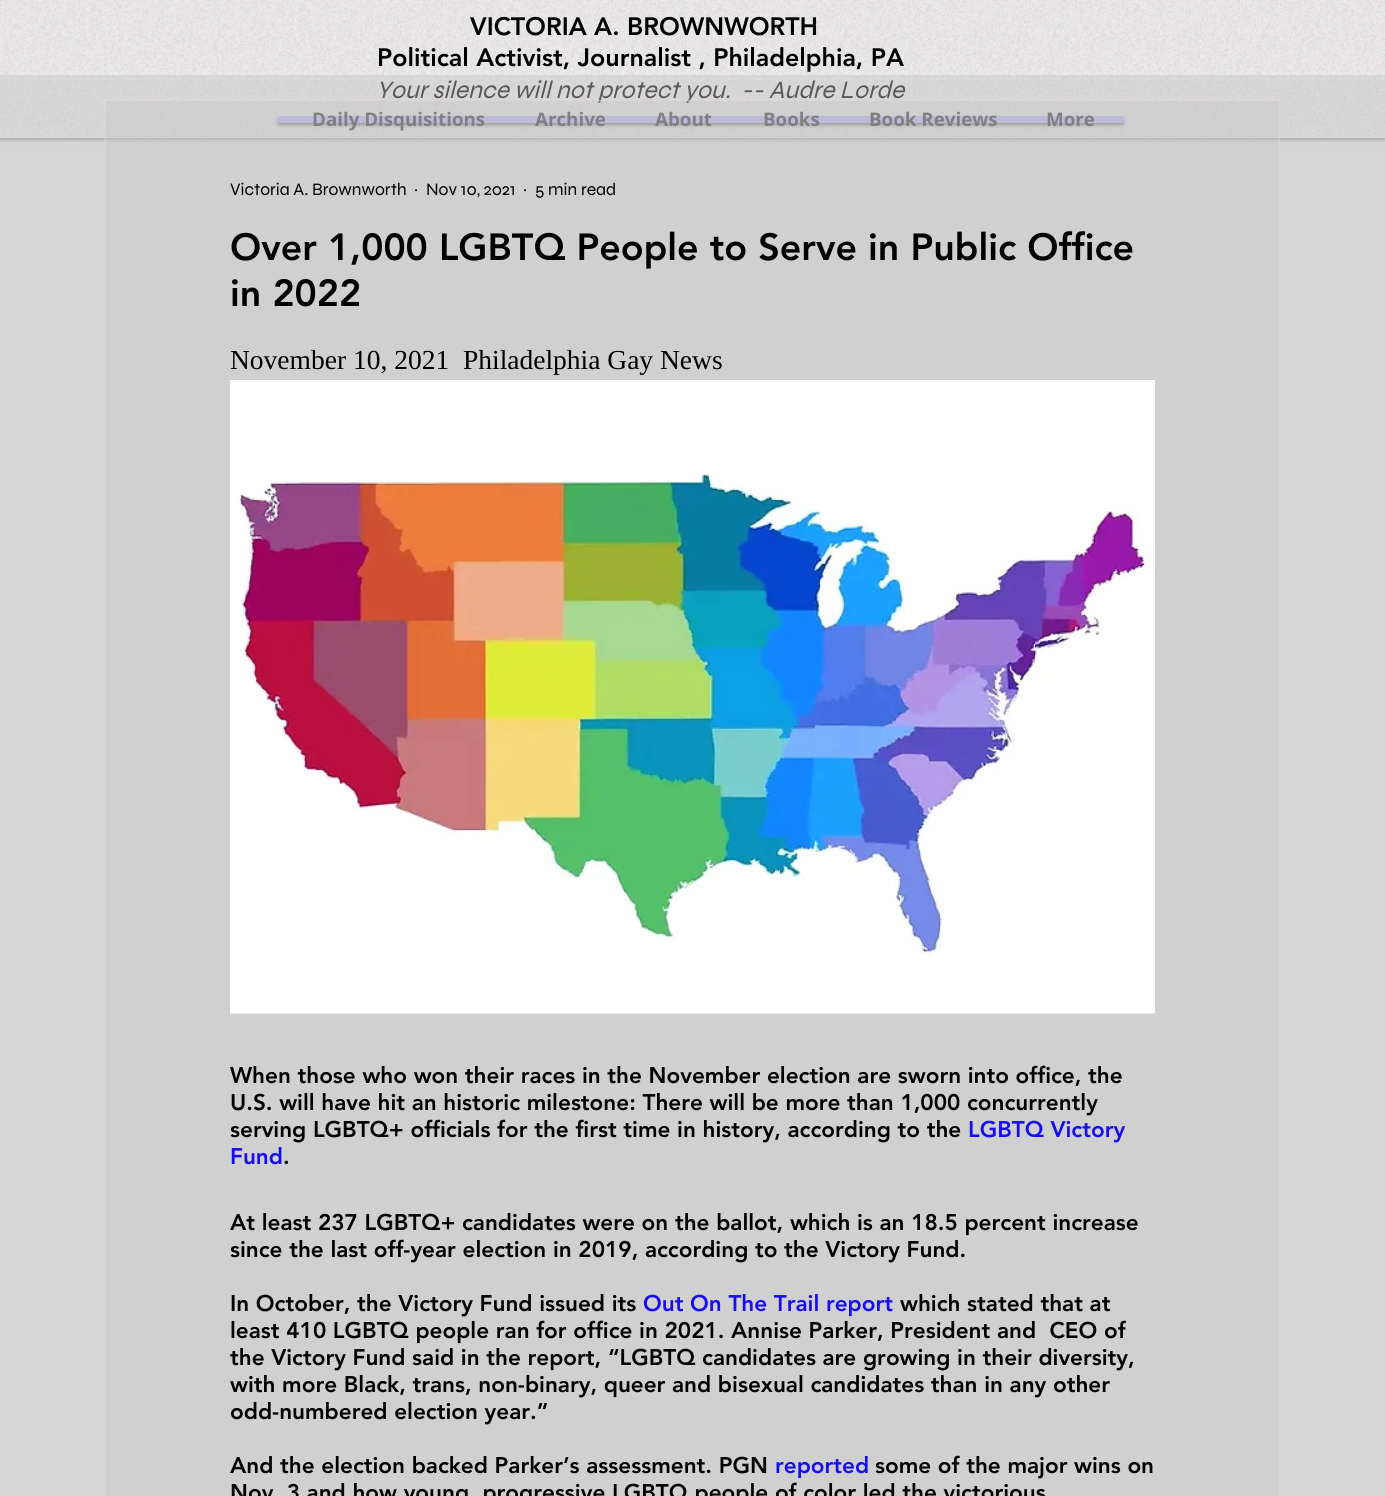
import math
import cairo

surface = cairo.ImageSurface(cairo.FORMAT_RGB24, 1385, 1496)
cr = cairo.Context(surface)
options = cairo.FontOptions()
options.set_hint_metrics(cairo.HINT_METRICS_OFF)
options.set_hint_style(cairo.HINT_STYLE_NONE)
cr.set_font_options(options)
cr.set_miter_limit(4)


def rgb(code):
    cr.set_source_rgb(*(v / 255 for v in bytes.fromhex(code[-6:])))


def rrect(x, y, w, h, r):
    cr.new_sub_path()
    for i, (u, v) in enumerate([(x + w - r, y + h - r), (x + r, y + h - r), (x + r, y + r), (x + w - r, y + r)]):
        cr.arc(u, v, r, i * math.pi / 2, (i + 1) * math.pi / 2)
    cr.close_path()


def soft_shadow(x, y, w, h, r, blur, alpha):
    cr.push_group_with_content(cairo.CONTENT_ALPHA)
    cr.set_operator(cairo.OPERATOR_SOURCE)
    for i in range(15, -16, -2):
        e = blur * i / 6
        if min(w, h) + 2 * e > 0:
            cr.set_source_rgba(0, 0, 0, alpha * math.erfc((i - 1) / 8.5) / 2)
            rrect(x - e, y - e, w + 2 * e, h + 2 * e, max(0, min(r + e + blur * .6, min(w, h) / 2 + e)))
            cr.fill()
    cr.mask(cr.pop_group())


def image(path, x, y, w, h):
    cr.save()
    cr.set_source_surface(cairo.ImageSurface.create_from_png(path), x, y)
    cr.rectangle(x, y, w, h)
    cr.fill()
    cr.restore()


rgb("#e8e6e6")
cr.paint()
cr.save()
cr.set_fill_rule(cairo.FILL_RULE_EVEN_ODD)
cr.new_path()
cr.move_to(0, 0)
cr.line_to(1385, 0)
cr.line_to(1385, 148)
cr.line_to(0, 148)
cr.close_path()
cr.move_to(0, 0)
cr.line_to(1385, 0)
cr.line_to(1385, 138)
cr.line_to(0, 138)
cr.close_path()
cr.clip()
rgb("#000000")
soft_shadow(0, 0, 1385, 138, 0, 3, 0.7)
cr.restore()
cr.set_source_rgba(1, 1, 1, 0.21)
cr.rectangle(0, 0, 1385, 138)
cr.fill()
image("img/1.png", 0, 0, 1385, 138)
rgb("#000000")
soft_shadow(278, 119, 845, 6, 0, 2, 0.7)
rgb("#afacfb")
cr.rectangle(278, 116, 845, 7)
cr.fill()
cr.select_font_face("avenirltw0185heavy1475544 Black")
cr.set_font_size(25)
rgb("#000000")
cr.move_to(470, 35)
cr.show_text("VICTORIA A. BROWNWORTH")
cr.move_to(377, 66)
cr.show_text("Political Activist, Journalist , Philadelphia, PA")
cr.select_font_face("Syne", cairo.FONT_SLANT_ITALIC)
cr.move_to(376, 98)
cr.show_text("Your silence will not protect you.  -- Audre Lorde")
cr.select_font_face("Open Sans", cairo.FONT_SLANT_NORMAL, cairo.FONT_WEIGHT_BOLD)
cr.set_font_size(18.75)
for x, y, s in [
    (312, 126, "Daily Disquisitions"),
    (535, 126, "Archive"),
    (655, 126, "About"),
    (763, 126, "Books"),
    (869, 126, "Book Reviews"),
    (1046, 126, "More"),
]:
    cr.move_to(x, y)
    cr.show_text(s)
cr.set_source_rgba(0.78, 0.78, 0.78, 0.45)
cr.rectangle(0, 75, 1385, 1421)
cr.fill()
cr.set_source_rgba(0.78, 0.78, 0.78, 0.36)
cr.rectangle(105, 100, 1175, 1396)
cr.fill()
cr.rectangle(105.5, 100.5, 1174, 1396)
cr.set_source_rgba(1, 0.839, 1, 0.36)
cr.set_line_width(1)
cr.stroke()
cr.select_font_face("Syne")
cr.set_font_size(17.5)
rgb("#000000")
for x, y, s in [
    (230, 195, "Victoria A. Brownworth"),
    (414, 195, "·"),
    (426, 195, "Nov 10, 2021"),
    (523, 195, "·"),
    (535, 195, "5 min read"),
]:
    cr.move_to(x, y)
    cr.show_text(s)
cr.select_font_face("avenirltw0185heavy1475544 Black")
cr.set_font_size(37.5)
cr.move_to(230, 260)
cr.show_text("Over 1,000 LGBTQ People to Serve in Public Office")
cr.move_to(230, 306)
cr.show_text("in 2022")
cr.select_font_face("Liberation Serif")
cr.set_font_size(27.5)
cr.move_to(230, 369)
cr.show_text("November 10, 2021  Philadelphia Gay News")
image("img/2.png", 230, 380, 925, 634)
cr.select_font_face("avenirltw0185heavy1475544 Black")
cr.set_font_size(22.5)
for x, y, s in [
    (230, 1083, "When those who won their races in the November election are sworn into office, the"),
    (230, 1110, "U.S. will have hit an historic milestone: There will be more than 1,000 concurrently"),
    (230, 1137, "serving LGBTQ+ officials for the first time in history, according to the"),
]:
    cr.move_to(x, y)
    cr.show_text(s)
rgb("#170df2")
cr.move_to(968, 1137)
cr.show_text("LGBTQ Victory")
cr.move_to(230, 1164)
cr.show_text("Fund")
rgb("#000000")
for x, y, s in [
    (283, 1164, "."),
    (230, 1230, "At least 237 LGBTQ+ candidates were on the ballot, which is an 18.5 percent increase"),
    (230, 1257, "since the last off-year election in 2019, according to the Victory Fund."),
    (230, 1311, "In October, the Victory Fund issued its"),
]:
    cr.move_to(x, y)
    cr.show_text(s)
rgb("#170df2")
cr.move_to(643, 1311)
cr.show_text("Out On The Trail report")
rgb("#000000")
for x, y, s in [
    (900, 1311, "which stated that at"),
    (230, 1338, "least 410 LGBTQ people ran for office in 2021. Annise Parker, President and  CEO of"),
    (230, 1365, "the Victory Fund said in the report, “LGBTQ candidates are growing in their diversity,"),
    (230, 1392, "with more Black, trans, non-binary, queer and bisexual candidates than in any other"),
    (230, 1419, "odd-numbered election year.”"),
    (230, 1473, "And the election backed Parker’s assessment. PGN"),
]:
    cr.move_to(x, y)
    cr.show_text(s)
rgb("#170df2")
cr.move_to(775, 1473)
cr.show_text("reported")
rgb("#000000")
cr.move_to(875, 1473)
cr.show_text("some of the major wins on")
cr.move_to(230, 1500)
cr.show_text("Nov. 3 and how young, progressive LGBTQ people of color led the victorious")
surface.write_to_png("page.png")
